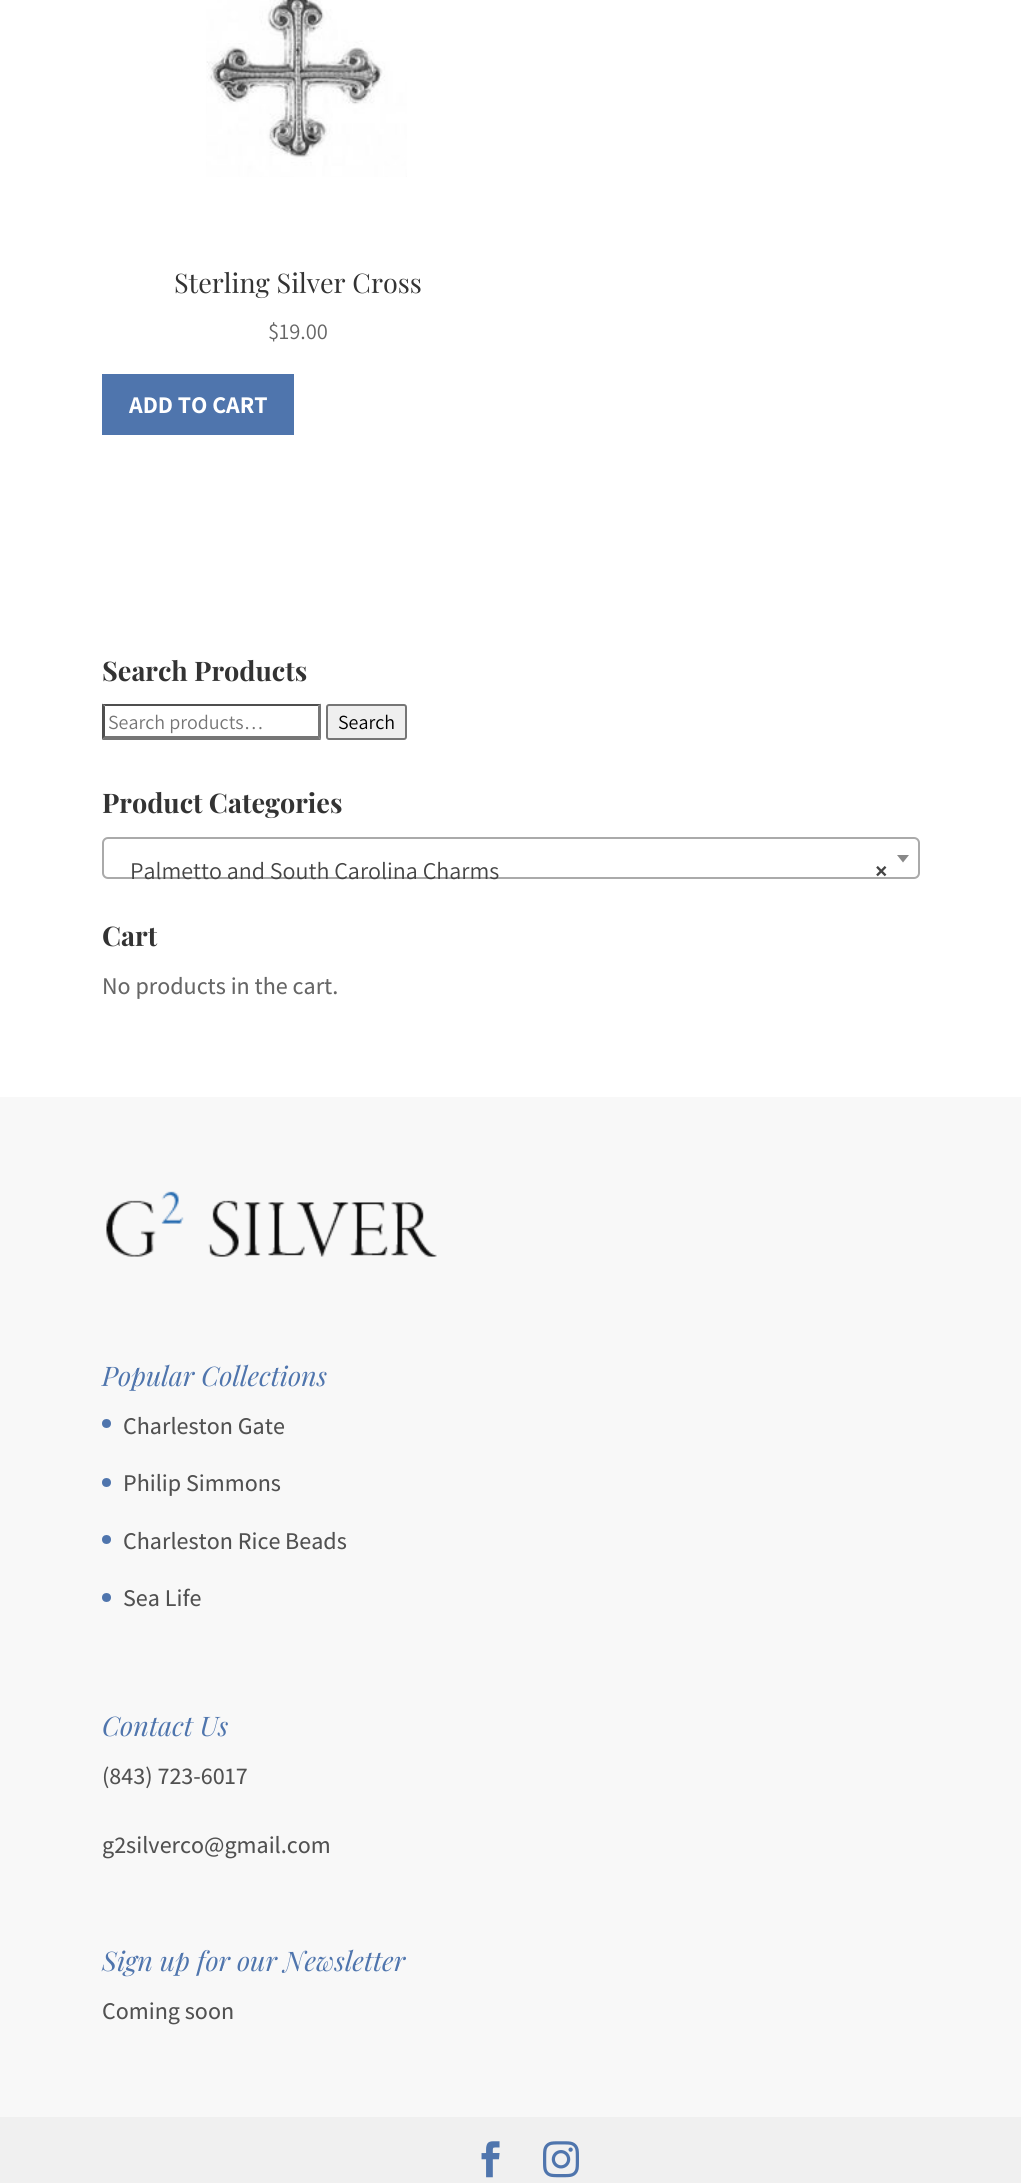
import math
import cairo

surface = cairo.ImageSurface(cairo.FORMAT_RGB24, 1021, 2183)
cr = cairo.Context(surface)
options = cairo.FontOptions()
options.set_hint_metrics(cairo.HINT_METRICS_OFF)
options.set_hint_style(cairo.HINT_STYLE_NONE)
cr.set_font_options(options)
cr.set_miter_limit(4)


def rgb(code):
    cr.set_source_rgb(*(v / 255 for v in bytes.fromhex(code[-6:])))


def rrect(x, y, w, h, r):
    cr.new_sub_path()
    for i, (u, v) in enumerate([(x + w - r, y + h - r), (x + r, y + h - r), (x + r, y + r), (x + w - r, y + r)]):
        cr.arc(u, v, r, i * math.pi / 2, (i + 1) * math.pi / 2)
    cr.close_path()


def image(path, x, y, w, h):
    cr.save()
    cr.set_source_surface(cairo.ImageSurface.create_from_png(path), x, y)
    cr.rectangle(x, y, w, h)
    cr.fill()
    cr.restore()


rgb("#ffffff")
cr.paint()
image("img/1.png", 206, 0, 201, 177)
rgb("#4f75ad")
cr.rectangle(102, 374, 192, 61)
cr.fill()
rgb("#4f4f4f")
cr.new_path()
cr.move_to(102, 704)
cr.line_to(321, 704)
cr.line_to(318, 706)
cr.line_to(105, 706)
cr.close_path()
cr.fill()
rgb("#767676")
cr.new_path()
cr.move_to(321, 703.5)
cr.line_to(321, 739.5)
cr.line_to(318, 736.5)
cr.line_to(318, 706.5)
cr.close_path()
cr.fill()
cr.new_path()
cr.move_to(321, 740)
cr.line_to(102, 740)
cr.line_to(105, 736)
cr.line_to(318, 736)
cr.close_path()
cr.fill()
rgb("#4f4f4f")
cr.new_path()
cr.move_to(102, 739.5)
cr.line_to(102, 703.5)
cr.line_to(105, 706.5)
cr.line_to(105, 736.5)
cr.close_path()
cr.fill()
rgb("#efefef")
rrect(327, 705, 79, 34, 2)
cr.fill_preserve()
rgb("#767676")
cr.stroke()
rrect(103, 838, 816, 40, 5)
rgb("#aaaaaa")
cr.stroke()
rgb("#888888")
cr.new_path()
cr.move_to(897, 855)
cr.line_to(909, 855)
cr.line_to(903, 862.5)
cr.close_path()
cr.fill()
rgb("#f8f8f8")
cr.rectangle(0, 1097, 1021, 1020)
cr.fill()
image("img/2.png", 106, 1191, 331, 66)
rgb("#4f75ad")
cr.arc(106.5, 1423.5, 4.5, 0, 2 * math.pi)
cr.fill()
cr.arc(106.5, 1482.5, 4.5, 0, 2 * math.pi)
cr.fill()
cr.arc(106.5, 1539.5, 4.5, 0, 2 * math.pi)
cr.fill()
cr.arc(106.5, 1597.5, 4.5, 0, 2 * math.pi)
cr.fill()
rgb("#f0f0f0")
cr.rectangle(0, 2117, 1021, 66)
cr.fill()
image("img/3.png", 481, 2141, 19, 37)
image("img/4.png", 543, 2141, 36, 37)
cr.select_font_face("Playfair Display")
cr.set_font_size(27)
rgb("#333333")
cr.move_to(174, 293)
cr.show_text("Sterling Silver Cross")
cr.select_font_face("Assistant ExtraLight")
cr.set_font_size(22.5)
rgb("#666666")
cr.move_to(268, 339)
cr.show_text("$19.00")
cr.select_font_face("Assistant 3 ExtraLight")
cr.set_font_size(24)
rgb("#ffffff")
cr.move_to(129, 413)
cr.show_text("ADD TO CART")
cr.select_font_face("Playfair Display", cairo.FONT_SLANT_NORMAL, cairo.FONT_WEIGHT_BOLD)
cr.set_font_size(27)
rgb("#333333")
cr.move_to(102, 681)
cr.show_text("Search Products")
cr.select_font_face("Assistant ExtraLight")
cr.set_font_size(20)
rgb("#757575")
cr.move_to(108, 729)
cr.show_text("Search products…")
rgb("#000000")
cr.move_to(338, 729)
cr.show_text("Search")
cr.select_font_face("Playfair Display", cairo.FONT_SLANT_NORMAL, cairo.FONT_WEIGHT_BOLD)
cr.set_font_size(27)
rgb("#333333")
cr.move_to(102, 813)
cr.show_text("Product Categories")
cr.select_font_face("Assistant ExtraLight")
cr.set_font_size(24)
rgb("#444444")
cr.move_to(130, 879)
cr.show_text("Palmetto and South Carolina Charms")
cr.select_font_face("Assistant 3 ExtraLight")
cr.move_to(875, 879)
cr.show_text("×")
cr.select_font_face("Playfair Display", cairo.FONT_SLANT_NORMAL, cairo.FONT_WEIGHT_BOLD)
cr.set_font_size(27)
rgb("#333333")
cr.move_to(102, 946)
cr.show_text("Cart")
cr.select_font_face("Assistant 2 ExtraLight")
cr.set_font_size(24)
rgb("#666666")
cr.move_to(102, 994)
cr.show_text("No products in the cart.")
cr.select_font_face("Playfair Display", cairo.FONT_SLANT_ITALIC)
cr.set_font_size(27)
rgb("#4f75ad")
cr.move_to(102, 1386)
cr.show_text("Popular Collections")
cr.select_font_face("Assistant 2 ExtraLight")
cr.set_font_size(24)
rgb("#515151")
for x, y, s in [
    (123, 1434, "Charleston Gate"),
    (123, 1491, "Philip Simmons"),
    (123, 1549, "Charleston Rice Beads"),
    (123, 1606, "Sea Life"),
]:
    cr.move_to(x, y)
    cr.show_text(s)
cr.select_font_face("Playfair Display", cairo.FONT_SLANT_ITALIC)
cr.set_font_size(27)
rgb("#4f75ad")
cr.move_to(102, 1736)
cr.show_text("Contact Us")
cr.select_font_face("Assistant 2 ExtraLight")
cr.set_font_size(24)
rgb("#515151")
cr.move_to(102, 1784)
cr.show_text("(843) 723-6017")
cr.move_to(102, 1853)
cr.show_text("g2silverco@gmail.com")
cr.select_font_face("Playfair Display", cairo.FONT_SLANT_ITALIC)
cr.set_font_size(27)
rgb("#4f75ad")
cr.move_to(102, 1971)
cr.show_text("Sign up for our Newsletter")
cr.select_font_face("Assistant 2 ExtraLight")
cr.set_font_size(24)
rgb("#515151")
cr.move_to(102, 2019)
cr.show_text("Coming soon")
surface.write_to_png("page.png")
